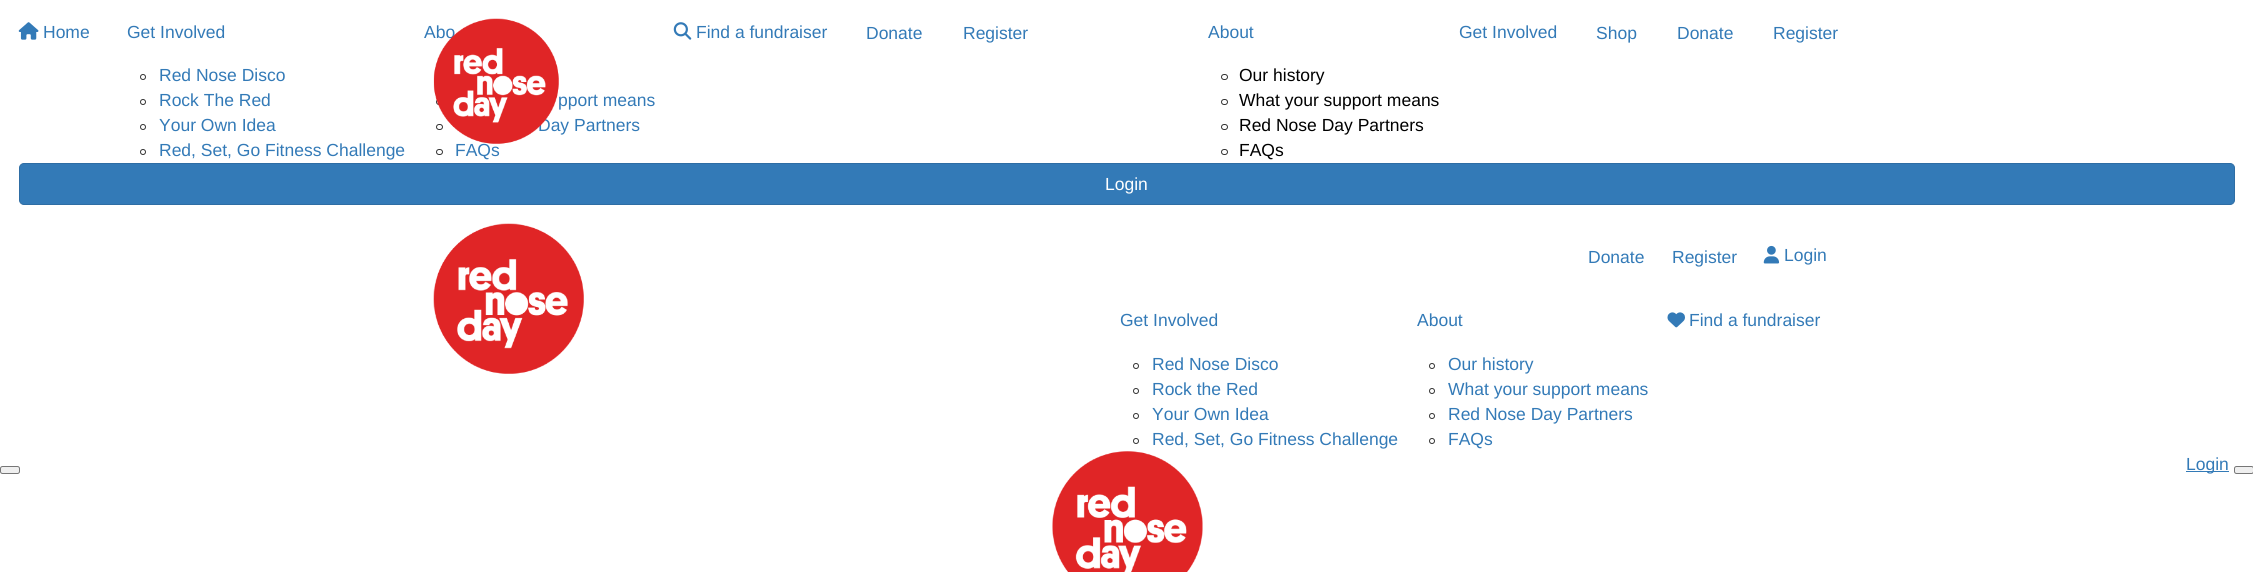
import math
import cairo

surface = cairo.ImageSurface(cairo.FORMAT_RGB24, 2253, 572)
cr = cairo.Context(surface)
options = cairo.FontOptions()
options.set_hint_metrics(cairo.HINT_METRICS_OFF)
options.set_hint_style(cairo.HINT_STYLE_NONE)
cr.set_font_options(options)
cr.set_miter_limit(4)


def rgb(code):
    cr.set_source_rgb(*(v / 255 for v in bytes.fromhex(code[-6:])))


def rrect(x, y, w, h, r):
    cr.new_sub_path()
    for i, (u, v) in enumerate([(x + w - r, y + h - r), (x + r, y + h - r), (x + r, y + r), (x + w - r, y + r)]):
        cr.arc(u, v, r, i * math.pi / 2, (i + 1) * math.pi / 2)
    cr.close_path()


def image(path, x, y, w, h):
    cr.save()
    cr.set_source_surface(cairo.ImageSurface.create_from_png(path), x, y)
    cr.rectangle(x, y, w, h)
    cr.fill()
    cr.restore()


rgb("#ffffff")
cr.paint()
image("img/1.png", 18, 22, 21, 18)
cr.arc(143, 77, 2.5, 0, 2 * math.pi)
rgb("#333333")
cr.set_line_width(1)
cr.stroke()
cr.arc(143, 102, 2.5, 0, 2 * math.pi)
cr.stroke()
cr.arc(143, 127, 2.5, 0, 2 * math.pi)
cr.stroke()
cr.arc(143, 152, 2.5, 0, 2 * math.pi)
cr.stroke()
rrect(436.5, 99.5, 6, 5, 2.5)
cr.stroke()
rrect(436.5, 124.5, 6, 5, 2.5)
cr.stroke()
rrect(436.5, 149.5, 6, 5, 2.5)
cr.stroke()
image("img/2.png", 673, 22, 19, 18)
rrect(1221.5, 74.5, 6, 5, 2.5)
cr.stroke()
rrect(1221.5, 99.5, 6, 5, 2.5)
cr.stroke()
rrect(1221.5, 124.5, 6, 5, 2.5)
cr.stroke()
rrect(1221.5, 149.5, 6, 5, 2.5)
cr.stroke()
image("img/4.png", 433, 223, 151, 151)
image("img/5.png", 1763, 245, 17, 19)
cr.arc(1136, 366, 2.5, 0, 2 * math.pi)
cr.stroke()
cr.arc(1136, 391, 2.5, 0, 2 * math.pi)
cr.stroke()
cr.arc(1136, 416, 2.5, 0, 2 * math.pi)
cr.stroke()
cr.arc(1136, 441, 2.5, 0, 2 * math.pi)
cr.stroke()
cr.arc(1432, 366, 2.5, 0, 2 * math.pi)
cr.stroke()
cr.arc(1432, 391, 2.5, 0, 2 * math.pi)
cr.stroke()
cr.arc(1432, 416, 2.5, 0, 2 * math.pi)
cr.stroke()
cr.arc(1432, 441, 2.5, 0, 2 * math.pi)
cr.stroke()
image("img/6.png", 1667, 312, 18, 16)
rgb("#efefef")
rrect(0.5, 466.5, 19, 7, 2)
cr.fill_preserve()
rgb("#767676")
cr.stroke()
image("img/7.png", 1052, 451, 151, 121)
rgb("#337ab7")
cr.rectangle(2186, 471, 43, 1)
cr.fill()
rgb("#efefef")
rrect(2234.5, 466.5, 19, 7, 2)
cr.fill_preserve()
rgb("#767676")
cr.stroke()
rgb("#337ab7")
rrect(19.5, 163.5, 2215, 41, 4.5)
cr.fill_preserve()
rgb("#2e6da4")
cr.stroke()
cr.select_font_face("Liberation Sans")
cr.set_font_size(17.5)
rgb("#337ab7")
for x, y, s in [
    (43, 38, "Home"),
    (127, 38, "Get Involved"),
    (159, 81, "Red Nose Disco"),
    (159, 106, "Rock The Red"),
    (159, 131, "Your Own Idea"),
    (159, 156, "Red, Set, Go Fitness Challenge"),
    (424, 38, "Abo"),
    (558, 106, "pport means"),
    (538, 131, "Day Partners"),
    (455, 156, "FAQs"),
    (696, 38, "Find a fundraiser"),
    (866, 39, "Donate"),
    (963, 39, "Register"),
]:
    cr.move_to(x, y)
    cr.show_text(s)
image("img/3.png", 433, 18, 126, 126)
cr.move_to(1208, 38)
cr.show_text("About")
rgb("#000000")
for x, y, s in [
    (1239, 81, "Our history"),
    (1239, 106, "What your support means"),
    (1239, 131, "Red Nose Day Partners"),
    (1239, 156, "FAQs"),
]:
    cr.move_to(x, y)
    cr.show_text(s)
rgb("#337ab7")
for x, y, s in [
    (1459, 38, "Get Involved"),
    (1596, 39, "Shop"),
    (1677, 39, "Donate"),
    (1773, 39, "Register"),
    (1588, 263, "Donate"),
    (1672, 263, "Register"),
    (1784, 261, "Login"),
    (1120, 326, "Get Involved"),
    (1152, 370, "Red Nose Disco"),
    (1152, 395, "Rock the Red"),
    (1152, 420, "Your Own Idea"),
    (1152, 445, "Red, Set, Go Fitness Challenge"),
    (1417, 326, "About"),
    (1448, 370, "Our history"),
    (1448, 395, "What your support means"),
    (1448, 420, "Red Nose Day Partners"),
    (1448, 445, "FAQs"),
    (1689, 326, "Find a fundraiser"),
    (2186, 470, "Login"),
]:
    cr.move_to(x, y)
    cr.show_text(s)
rgb("#ffffff")
cr.move_to(1105, 190)
cr.show_text("Login")
surface.write_to_png("page.png")
